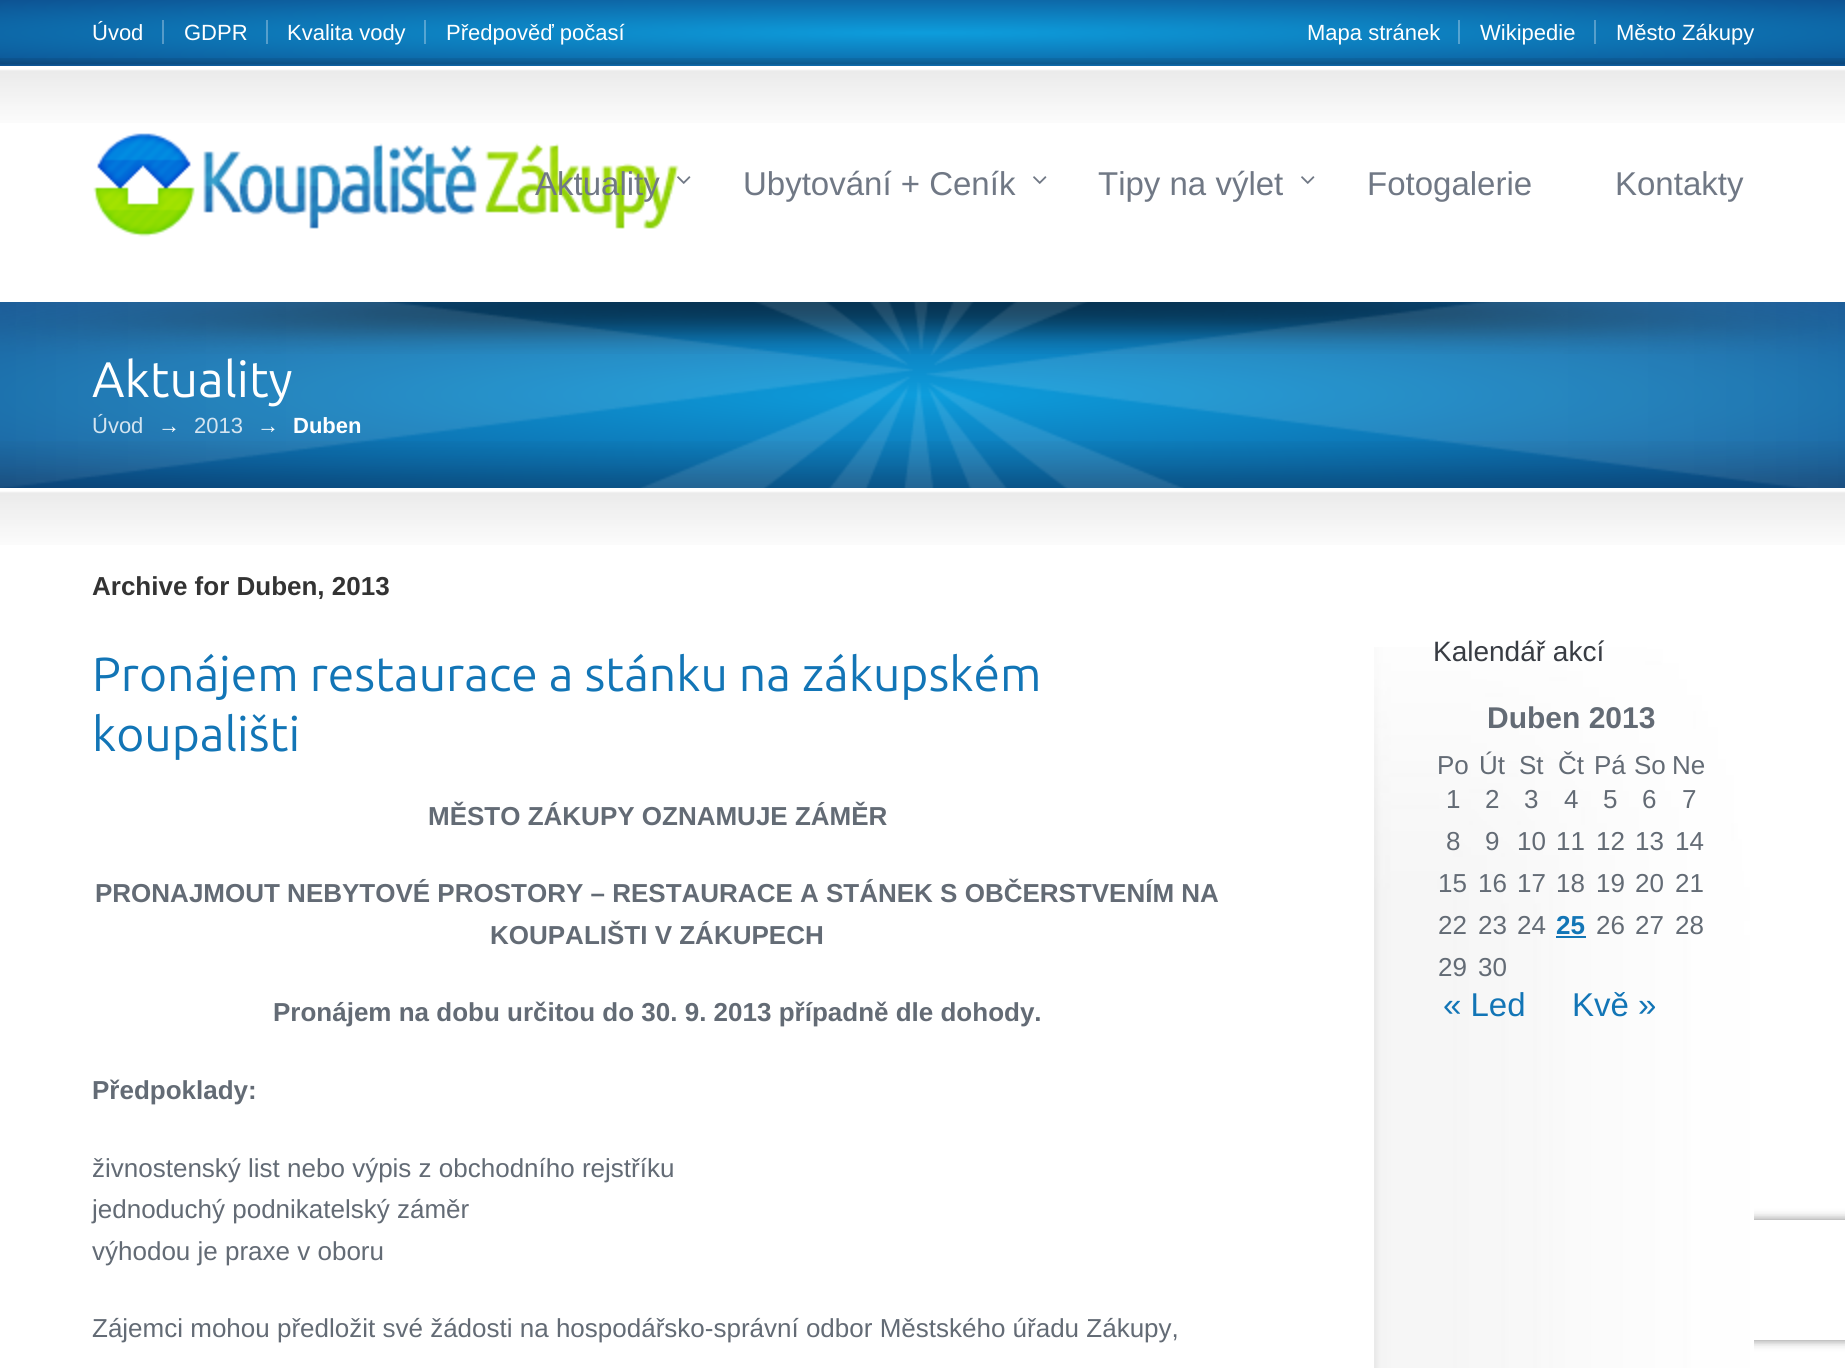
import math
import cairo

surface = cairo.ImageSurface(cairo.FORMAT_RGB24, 1845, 1368)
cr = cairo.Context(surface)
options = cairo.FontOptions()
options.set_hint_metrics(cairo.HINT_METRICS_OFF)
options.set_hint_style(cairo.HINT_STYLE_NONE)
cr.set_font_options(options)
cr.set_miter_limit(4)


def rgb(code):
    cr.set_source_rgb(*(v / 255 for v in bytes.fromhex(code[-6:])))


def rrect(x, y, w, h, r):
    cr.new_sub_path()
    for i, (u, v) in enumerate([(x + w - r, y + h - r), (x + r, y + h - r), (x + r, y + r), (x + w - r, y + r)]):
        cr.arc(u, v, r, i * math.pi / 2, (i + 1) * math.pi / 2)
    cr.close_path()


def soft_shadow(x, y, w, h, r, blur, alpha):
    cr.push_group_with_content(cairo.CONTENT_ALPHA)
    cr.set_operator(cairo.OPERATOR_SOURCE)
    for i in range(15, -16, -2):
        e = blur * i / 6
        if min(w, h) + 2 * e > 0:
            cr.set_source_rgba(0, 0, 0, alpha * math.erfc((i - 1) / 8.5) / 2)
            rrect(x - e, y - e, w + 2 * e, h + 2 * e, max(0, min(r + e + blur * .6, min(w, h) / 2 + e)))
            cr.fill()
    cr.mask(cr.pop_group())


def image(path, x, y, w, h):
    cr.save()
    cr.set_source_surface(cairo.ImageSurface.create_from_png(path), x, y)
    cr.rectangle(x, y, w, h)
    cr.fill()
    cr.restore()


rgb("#ffffff")
cr.paint()
gradient = cairo.RadialGradient(0, 0, 0, 0, 0, 1)
gradient.set_matrix(cairo.Matrix(1 / 1305, 0, 0, 1 / 47, -1 * 923 / 1305, -1 * 33 / 47))
gradient.add_color_stop_rgba(0, 0.051, 0.616, 0.863, 1)
gradient.add_color_stop_rgba(1, 0.051, 0.322, 0.573, 1)
cr.set_source(gradient)
cr.rectangle(0, 0, 1845, 66)
cr.fill()
gradient = cairo.RadialGradient(0, 0, 0, 0, 0, 1)
gradient.set_matrix(cairo.Matrix(1 / 1305, 0, 0, 1 / 47, -1 * 923 / 1305, -1 * 33 / 47))
gradient.add_color_stop_rgba(0, 0.337, 0.729, 0.906, 1)
gradient.add_color_stop_rgba(1, 0.337, 0.525, 0.702, 1)
cr.set_source(gradient)
cr.rectangle(1594, 20, 2, 24)
cr.fill()
cr.rectangle(1458, 20, 2, 24)
cr.fill()
cr.rectangle(424, 20, 2, 24)
cr.fill()
cr.rectangle(266, 20, 2, 24)
cr.fill()
cr.rectangle(162, 20, 2, 24)
cr.fill()
image("img/1.png", 0, 58, 1845, 7)
image("img/2.png", 0, 69, 1845, 54)
image("img/3.png", 93, 133, 586, 104)
image("img/4.png", 677, 176, 14, 8)
image("img/4.png", 1033, 176, 14, 8)
image("img/4.png", 1301, 176, 14, 8)
gradient = cairo.RadialGradient(0, 0, 0, 0, 0, 1)
gradient.set_matrix(cairo.Matrix(1 / 1305, 0, 0, 1 / 132, -1 * 923 / 1305, -1 * 395 / 132))
gradient.add_color_stop_rgba(0, 0.051, 0.616, 0.863, 1)
gradient.add_color_stop_rgba(1, 0.051, 0.322, 0.573, 1)
cr.set_source(gradient)
cr.rectangle(0, 302, 1845, 186)
cr.fill()
image("img/5.png", 0, 302, 1845, 52)
image("img/7.png", 0, 441, 1845, 47)
image("img/6.png", 0, 302, 1845, 186)
image("img/2.png", 0, 491, 1845, 54)
cr.save()
cr.set_fill_rule(cairo.FILL_RULE_EVEN_ODD)
cr.new_path()
cr.move_to(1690, 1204)
cr.line_to(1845, 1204)
cr.line_to(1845, 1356)
cr.line_to(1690, 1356)
cr.close_path()
cr.move_to(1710, 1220)
cr.line_to(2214, 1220)
cr.curve_to(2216, 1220, 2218, 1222, 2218, 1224)
cr.line_to(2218, 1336)
cr.curve_to(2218, 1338, 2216, 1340, 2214, 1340)
cr.line_to(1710, 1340)
cr.curve_to(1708, 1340, 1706, 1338, 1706, 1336)
cr.line_to(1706, 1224)
cr.curve_to(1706, 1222, 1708, 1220, 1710, 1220)
cr.close_path()
cr.clip()
rgb("#808080")
soft_shadow(1706, 1220, 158, 120, 4, 5, 1)
cr.restore()
image("img/8.png", 1374, 647, 380, 721)
rgb("#1275b6")
cr.rectangle(1556, 936, 30, 2)
cr.fill()
cr.select_font_face("Liberation Sans")
cr.set_font_size(22)
rgb("#ffffff")
for x, y, s in [
    (92, 40, "Úvod"),
    (184, 40, "GDPR"),
    (287, 40, "Kvalita vody"),
    (446, 40, "Předpověď počasí"),
    (1307, 40, "Mapa stránek"),
    (1480, 40, "Wikipedie"),
    (1616, 40, "Město Zákupy"),
]:
    cr.move_to(x, y)
    cr.show_text(s)
cr.set_font_size(33)
rgb("#707885")
for x, y, s in [
    (535, 195, "Aktuality"),
    (743, 195, "Ubytování + Ceník"),
    (1098, 195, "Tipy na výlet"),
    (1367, 195, "Fotogalerie"),
    (1615, 195, "Kontakty"),
]:
    cr.move_to(x, y)
    cr.show_text(s)
cr.select_font_face("Ubuntu")
cr.set_font_size(50)
rgb("#ffffff")
cr.move_to(92, 397)
cr.show_text("Aktuality")
cr.select_font_face("Liberation Sans")
cr.set_font_size(22)
rgb("#d3e4f0")
cr.move_to(92, 433)
cr.show_text("Úvod")
rgb("#ffffff")
cr.move_to(158, 433)
cr.show_text("→")
rgb("#d3e4f0")
cr.move_to(194, 433)
cr.show_text("2013")
rgb("#ffffff")
cr.move_to(257, 433)
cr.show_text("→")
cr.select_font_face("Liberation Sans", cairo.FONT_SLANT_NORMAL, cairo.FONT_WEIGHT_BOLD)
cr.move_to(293, 433)
cr.show_text("Duben")
cr.set_font_size(26)
rgb("#333333")
cr.move_to(92, 595)
cr.show_text("Archive for Duben, 2013")
cr.select_font_face("Ubuntu")
cr.set_font_size(48)
rgb("#1275b6")
cr.move_to(92, 691)
cr.show_text("Pronájem restaurace a stánku na zákupském")
cr.move_to(92, 751)
cr.show_text("koupališti")
cr.select_font_face("Liberation Sans", cairo.FONT_SLANT_NORMAL, cairo.FONT_WEIGHT_BOLD)
cr.set_font_size(26)
rgb("#636b75")
for x, y, s in [
    (428, 825, "MĚSTO ZÁKUPY OZNAMUJE ZÁMĚR"),
    (95, 902, "PRONAJMOUT NEBYTOVÉ PROSTORY – RESTAURACE A STÁNEK S OBČERSTVENÍM NA"),
    (490, 944, "KOUPALIŠTI V ZÁKUPECH"),
    (273, 1021, "Pronájem na dobu určitou do 30. 9. 2013 případně dle dohody."),
    (92, 1099, "Předpoklady:"),
]:
    cr.move_to(x, y)
    cr.show_text(s)
cr.select_font_face("Liberation Sans")
for x, y, s in [
    (92, 1177, "živnostenský list nebo výpis z obchodního rejstříku"),
    (92, 1218, "jednoduchý podnikatelský záměr"),
    (92, 1260, "výhodou je praxe v oboru"),
    (92, 1337, "Zájemci mohou předložit své žádosti na hospodářsko-správní odbor Městského úřadu Zákupy,"),
]:
    cr.move_to(x, y)
    cr.show_text(s)
cr.set_font_size(28)
rgb("#383c43")
cr.move_to(1433, 661)
cr.show_text("Kalendář akcí")
cr.select_font_face("Liberation Sans", cairo.FONT_SLANT_NORMAL, cairo.FONT_WEIGHT_BOLD)
cr.set_font_size(30)
rgb("#636b75")
cr.move_to(1487, 728)
cr.show_text("Duben 2013")
cr.select_font_face("Liberation Sans")
cr.set_font_size(26)
for x, y, s in [
    (1437, 774, "Po"),
    (1479, 774, "Út"),
    (1519, 774, "St"),
    (1558, 774, "Čt"),
    (1594, 774, "Pá"),
    (1634, 774, "So"),
    (1672, 774, "Ne"),
    (1446, 808, "1"),
    (1485, 808, "2"),
    (1524, 808, "3"),
    (1564, 808, "4"),
    (1603, 808, "5"),
    (1642, 808, "6"),
    (1682, 808, "7"),
    (1446, 850, "8"),
    (1485, 850, "9"),
    (1517, 850, "10"),
    (1556, 850, "11"),
    (1596, 850, "12"),
    (1635, 850, "13"),
    (1675, 850, "14"),
    (1438, 892, "15"),
    (1478, 892, "16"),
    (1517, 892, "17"),
    (1556, 892, "18"),
    (1596, 892, "19"),
    (1635, 892, "20"),
    (1675, 892, "21"),
    (1438, 934, "22"),
    (1478, 934, "23"),
    (1517, 934, "24"),
]:
    cr.move_to(x, y)
    cr.show_text(s)
cr.select_font_face("Liberation Sans", cairo.FONT_SLANT_NORMAL, cairo.FONT_WEIGHT_BOLD)
rgb("#1275b6")
cr.move_to(1556, 934)
cr.show_text("25")
cr.select_font_face("Liberation Sans")
rgb("#636b75")
for x, y, s in [
    (1596, 934, "26"),
    (1635, 934, "27"),
    (1675, 934, "28"),
    (1438, 976, "29"),
    (1478, 976, "30"),
]:
    cr.move_to(x, y)
    cr.show_text(s)
cr.set_font_size(33)
rgb("#1275b6")
cr.move_to(1443, 1016)
cr.show_text("« Led")
cr.move_to(1572, 1016)
cr.show_text("Kvě »")
surface.write_to_png("page.png")
